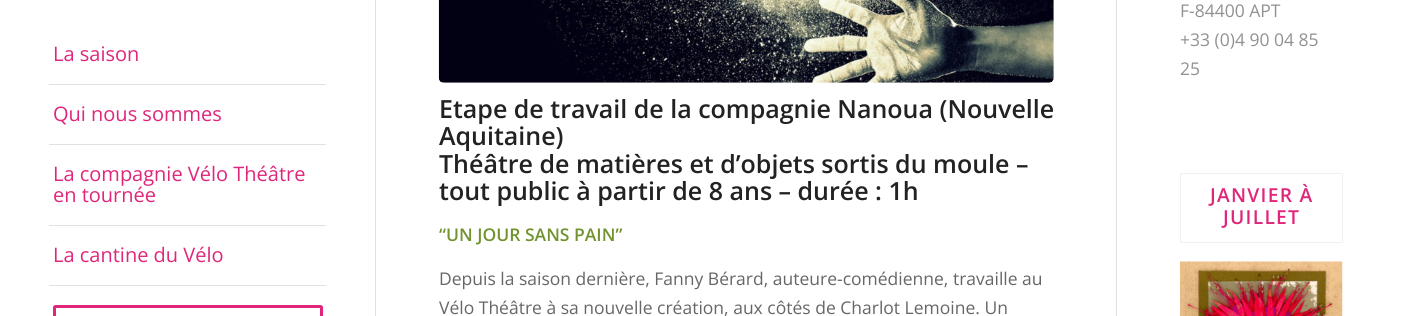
import math
import cairo

surface = cairo.ImageSurface(cairo.FORMAT_RGB24, 1405, 316)
cr = cairo.Context(surface)
options = cairo.FontOptions()
options.set_hint_metrics(cairo.HINT_METRICS_OFF)
options.set_hint_style(cairo.HINT_STYLE_NONE)
cr.set_font_options(options)
cr.set_miter_limit(4)


def rgb(code):
    cr.set_source_rgb(*(v / 255 for v in bytes.fromhex(code[-6:])))


def tracked(x, y, s, letter, word):
    cr.move_to(x, y)
    for ch in s:
        cr.show_text(ch)
        cr.rel_move_to(letter + word * (ch == ' '), 0)


def rrect(x, y, w, h, r):
    cr.new_sub_path()
    for i, (u, v) in enumerate([(x + w - r, y + h - r), (x + r, y + h - r), (x + r, y + r), (x + w - r, y + r)]):
        cr.arc(u, v, r, i * math.pi / 2, (i + 1) * math.pi / 2)
    cr.close_path()


def image(path, x, y, w, h):
    cr.save()
    cr.set_source_surface(cairo.ImageSurface.create_from_png(path), x, y)
    cr.rectangle(x, y, w, h)
    cr.fill()
    cr.restore()


rgb("#ffffff")
cr.paint()
for x, y, w, h, color in [
    (49, 84, 277, 1, "#e1e1e1"),
    (49, 144, 277, 1, "#e1e1e1"),
    (49, 225, 277, 1, "#e1e1e1"),
    (49, 285, 277, 1, "#e1e1e1"),
]:
    rgb(color)
    cr.rectangle(x, y, w, h)
    cr.fill()
rrect(54.5, 306.5, 267, 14, 1)
rgb("#e0267a")
cr.set_line_width(3)
cr.stroke()
rgb("#e1e1e1")
cr.rectangle(375, 0, 1, 316)
cr.fill()
cr.rectangle(1116, 0, 1, 316)
cr.fill()
image("img/1.png", 438, 0, 616, 83)
cr.rectangle(1180.5, 173.5, 162, 69)
rgb("#f0f0f0")
cr.set_line_width(1)
cr.stroke()
image("img/2.png", 1180, 261, 163, 55)
cr.select_font_face("Open Sans")
cr.set_font_size(20)
rgb("#e0267a")
for x, y, s in [
    (53, 61, "La saison"),
    (53, 121, "Qui nous sommes"),
    (53, 181, "La compagnie Vélo Théâtre"),
    (53, 202, "en tournée"),
    (53, 262, "La cantine du Vélo"),
]:
    cr.move_to(x, y)
    cr.show_text(s)
cr.select_font_face("Open Sans SemiBold")
cr.set_font_size(25)
rgb("#222222")
for x, y, s in [
    (439, 118, "Etape de travail de la compagnie Nanoua (Nouvelle"),
    (439, 145, "Aquitaine)"),
    (439, 173, "Théâtre de matières et d’objets sortis du moule –"),
    (439, 200, "tout public à partir de 8 ans – durée : 1h"),
]:
    cr.move_to(x, y)
    cr.show_text(s)
cr.set_font_size(17.5)
rgb("#719430")
cr.move_to(439, 241)
cr.show_text("“UN JOUR SANS PAIN”")
cr.select_font_face("Open Sans")
rgb("#666666")
cr.move_to(439, 285)
cr.show_text("Depuis la saison dernière, Fanny Bérard, auteure-comédienne, travaille au")
cr.move_to(439, 314)
cr.show_text("Vélo Théâtre à sa nouvelle création, aux côtés de Charlot Lemoine. Un")
rgb("#919191")
for x, y, s in [
    (1180, 17, "F-84400 APT"),
    (1180, 46, "+33 (0)4 90 04 85"),
    (1180, 75, "25"),
]:
    cr.move_to(x, y)
    cr.show_text(s)
cr.select_font_face("Open Sans SemiBold")
cr.set_font_size(19.25)
rgb("#e0267a")
tracked(1210, 202, "JANVIER À", 1.25, 0)
tracked(1223, 224, "JUILLET", 1.25, 0)
surface.write_to_png("page.png")
